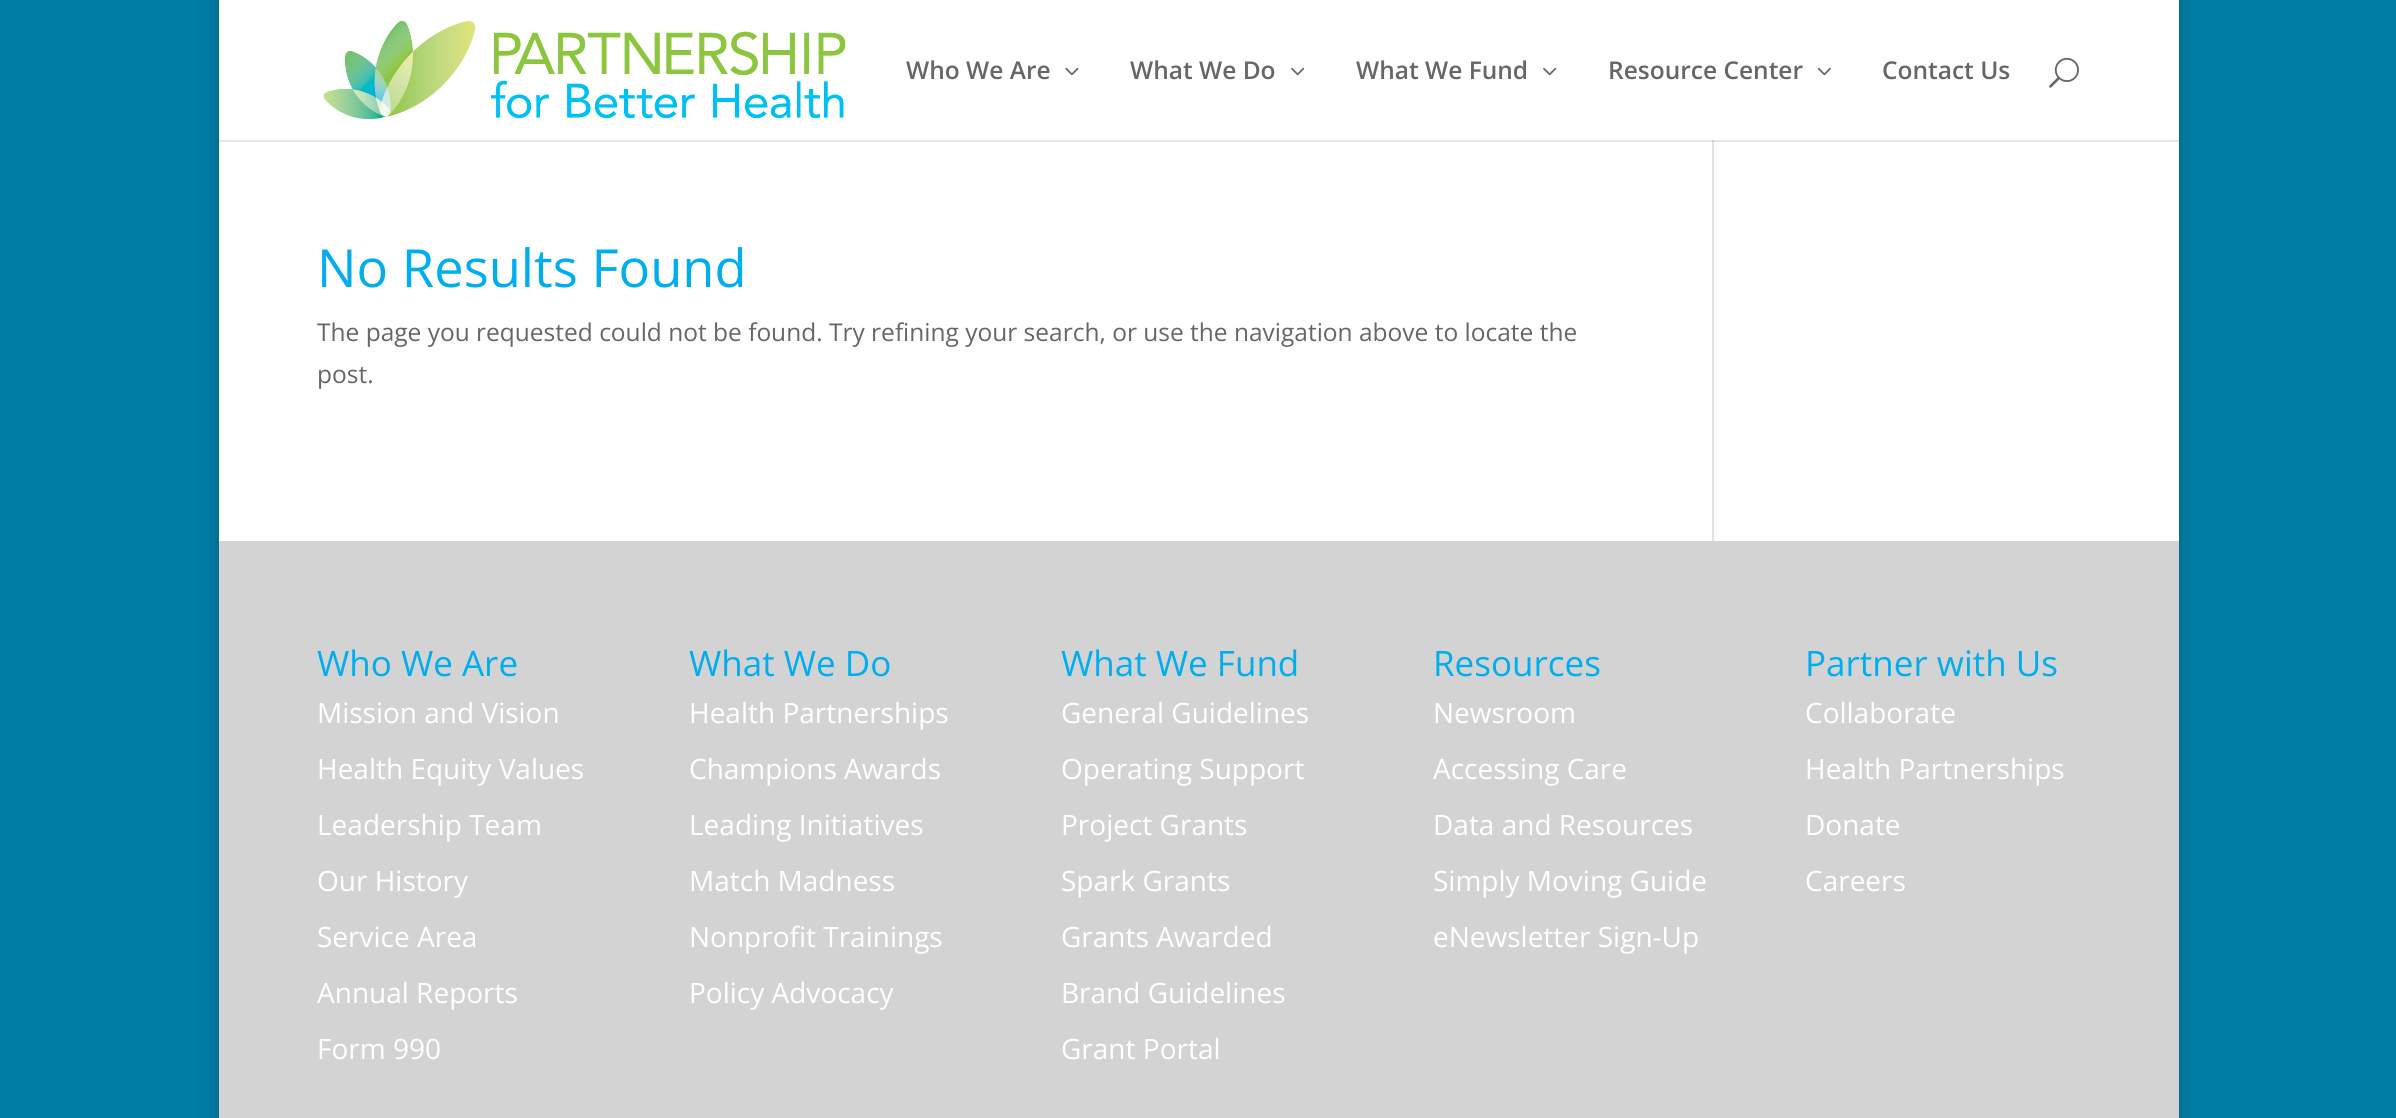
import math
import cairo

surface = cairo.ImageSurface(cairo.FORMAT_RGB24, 2396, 1118)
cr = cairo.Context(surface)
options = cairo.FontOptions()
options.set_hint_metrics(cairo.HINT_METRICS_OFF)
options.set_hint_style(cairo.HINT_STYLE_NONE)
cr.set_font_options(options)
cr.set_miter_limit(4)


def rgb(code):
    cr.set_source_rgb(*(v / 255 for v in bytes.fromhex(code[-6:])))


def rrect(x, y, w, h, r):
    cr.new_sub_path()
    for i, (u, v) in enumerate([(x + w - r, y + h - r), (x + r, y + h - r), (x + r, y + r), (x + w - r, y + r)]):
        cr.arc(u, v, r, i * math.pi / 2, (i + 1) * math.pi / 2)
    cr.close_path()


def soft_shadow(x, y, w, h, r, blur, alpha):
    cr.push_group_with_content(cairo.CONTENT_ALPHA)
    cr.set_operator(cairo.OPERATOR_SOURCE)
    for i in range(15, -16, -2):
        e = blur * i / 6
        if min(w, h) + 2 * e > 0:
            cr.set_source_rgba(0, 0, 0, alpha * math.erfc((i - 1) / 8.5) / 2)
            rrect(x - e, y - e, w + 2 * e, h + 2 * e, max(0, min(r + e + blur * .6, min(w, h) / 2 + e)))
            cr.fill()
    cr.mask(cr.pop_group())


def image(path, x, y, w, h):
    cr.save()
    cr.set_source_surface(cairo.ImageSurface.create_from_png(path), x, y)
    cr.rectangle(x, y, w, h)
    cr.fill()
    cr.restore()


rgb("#007da4")
cr.paint()
rgb("#000000")
soft_shadow(219, 0, 1960, 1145, 0, 9, 0.2)
rgb("#ffffff")
cr.rectangle(219, 0, 1960, 541)
cr.fill()
rgb("#e2e2e2")
cr.rectangle(1712, 140, 2, 401)
cr.fill()
cr.set_source_rgba(0, 0, 0, 0.1)
cr.new_path()
cr.move_to(219, 140)
cr.line_to(219, 142)
cr.line_to(2179, 142)
cr.line_to(2179, 2)
cr.line_to(2179, 140)
cr.close_path()
cr.fill()
image("img/1.png", 323, 21, 523, 98)
image("img/2.png", 1065, 67, 14, 9)
image("img/3.png", 1291, 67, 14, 9)
image("img/3.png", 1543, 67, 14, 9)
image("img/4.png", 1817, 67, 14, 9)
image("img/5.png", 2049, 57, 30, 31)
rgb("#d3d3d3")
cr.rectangle(219, 541, 1960, 577)
cr.fill()
cr.select_font_face("Open Sans SemiBold")
cr.set_font_size(24.5)
rgb("#666666")
for x, y, s in [
    (906, 79, "Who We Are"),
    (1130, 79, "What We Do"),
    (1356, 79, "What We Fund"),
    (1608, 79, "Resource Center"),
    (1882, 79, "Contact Us"),
]:
    cr.move_to(x, y)
    cr.show_text(s)
cr.select_font_face("Open Sans")
cr.set_font_size(52.5)
rgb("#00adee")
cr.move_to(317, 287)
cr.show_text("No Results Found")
cr.set_font_size(24.5)
rgb("#666666")
cr.move_to(317, 341)
cr.show_text("The page you requested could not be found. Try refining your search, or use the navigation above to locate the")
cr.move_to(317, 383)
cr.show_text("post.")
cr.set_font_size(35)
rgb("#00adee")
cr.move_to(317, 676)
cr.show_text("Who We Are")
cr.set_font_size(28)
rgb("#ffffff")
for x, y, s in [
    (317, 723, "Mission and Vision"),
    (317, 779, "Health Equity Values"),
    (317, 835, "Leadership Team"),
    (317, 891, "Our History"),
    (317, 947, "Service Area"),
    (317, 1003, "Annual Reports"),
    (317, 1059, "Form 990"),
]:
    cr.move_to(x, y)
    cr.show_text(s)
cr.set_font_size(35)
rgb("#00adee")
cr.move_to(689, 676)
cr.show_text("What We Do")
cr.set_font_size(28)
rgb("#ffffff")
for x, y, s in [
    (689, 723, "Health Partnerships"),
    (689, 779, "Champions Awards"),
    (689, 835, "Leading Initiatives"),
    (689, 891, "Match Madness"),
    (689, 947, "Nonprofit Trainings"),
    (689, 1003, "Policy Advocacy"),
]:
    cr.move_to(x, y)
    cr.show_text(s)
cr.set_font_size(35)
rgb("#00adee")
cr.move_to(1061, 676)
cr.show_text("What We Fund")
cr.set_font_size(28)
rgb("#ffffff")
for x, y, s in [
    (1061, 723, "General Guidelines"),
    (1061, 779, "Operating Support"),
    (1061, 835, "Project Grants"),
    (1061, 891, "Spark Grants"),
    (1061, 947, "Grants Awarded"),
    (1061, 1003, "Brand Guidelines"),
    (1061, 1059, "Grant Portal"),
]:
    cr.move_to(x, y)
    cr.show_text(s)
cr.set_font_size(35)
rgb("#00adee")
cr.move_to(1433, 676)
cr.show_text("Resources")
cr.set_font_size(28)
rgb("#ffffff")
for x, y, s in [
    (1433, 723, "Newsroom"),
    (1433, 779, "Accessing Care"),
    (1433, 835, "Data and Resources"),
    (1433, 891, "Simply Moving Guide"),
    (1433, 947, "eNewsletter Sign-Up"),
]:
    cr.move_to(x, y)
    cr.show_text(s)
cr.set_font_size(35)
rgb("#00adee")
cr.move_to(1805, 676)
cr.show_text("Partner with Us")
cr.set_font_size(28)
rgb("#ffffff")
for x, y, s in [
    (1805, 723, "Collaborate"),
    (1805, 779, "Health Partnerships"),
    (1805, 835, "Donate"),
    (1805, 891, "Careers"),
]:
    cr.move_to(x, y)
    cr.show_text(s)
surface.write_to_png("page.png")
